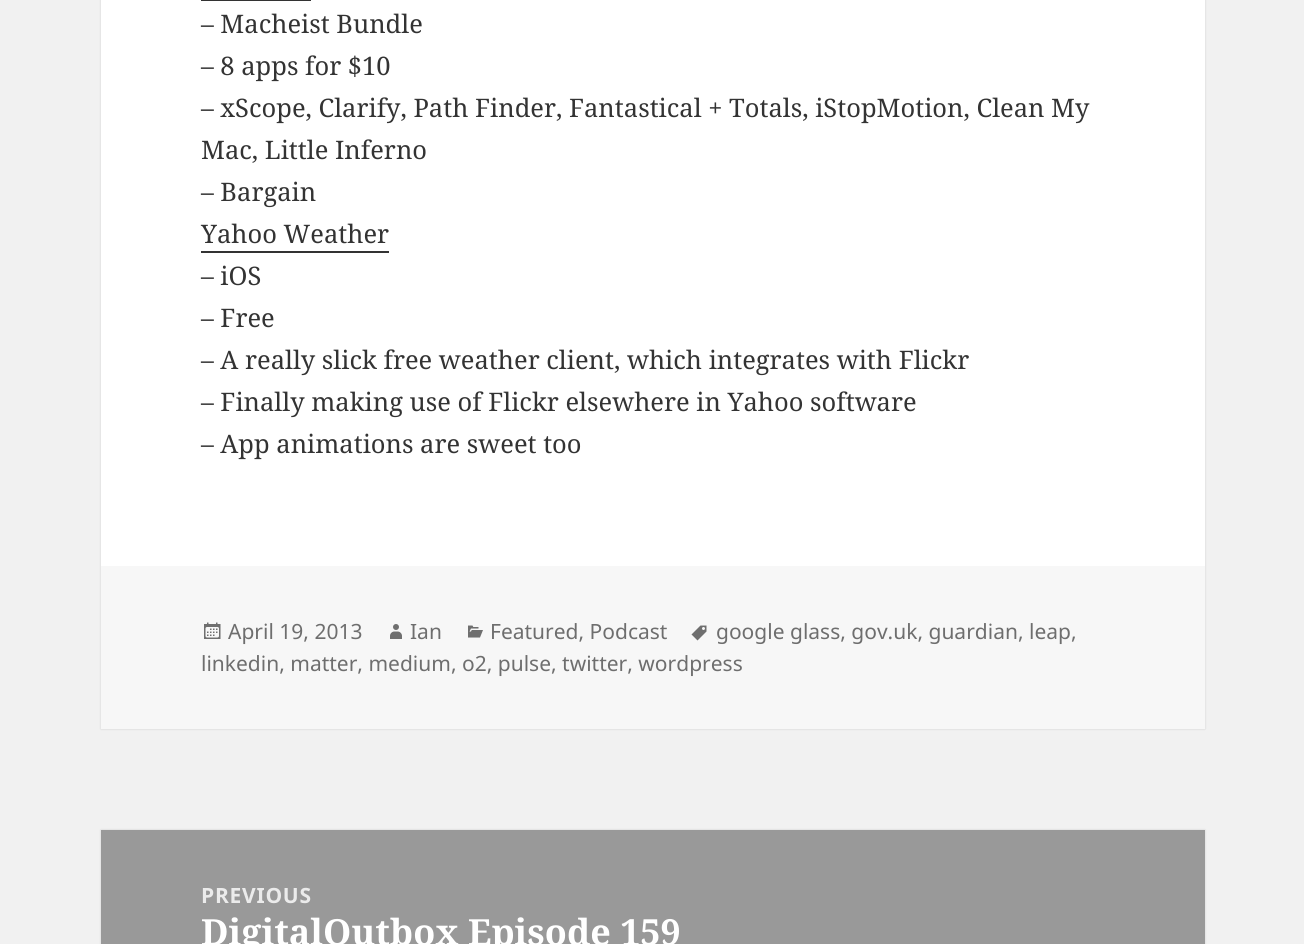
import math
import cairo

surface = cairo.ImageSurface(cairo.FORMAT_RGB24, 1304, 944)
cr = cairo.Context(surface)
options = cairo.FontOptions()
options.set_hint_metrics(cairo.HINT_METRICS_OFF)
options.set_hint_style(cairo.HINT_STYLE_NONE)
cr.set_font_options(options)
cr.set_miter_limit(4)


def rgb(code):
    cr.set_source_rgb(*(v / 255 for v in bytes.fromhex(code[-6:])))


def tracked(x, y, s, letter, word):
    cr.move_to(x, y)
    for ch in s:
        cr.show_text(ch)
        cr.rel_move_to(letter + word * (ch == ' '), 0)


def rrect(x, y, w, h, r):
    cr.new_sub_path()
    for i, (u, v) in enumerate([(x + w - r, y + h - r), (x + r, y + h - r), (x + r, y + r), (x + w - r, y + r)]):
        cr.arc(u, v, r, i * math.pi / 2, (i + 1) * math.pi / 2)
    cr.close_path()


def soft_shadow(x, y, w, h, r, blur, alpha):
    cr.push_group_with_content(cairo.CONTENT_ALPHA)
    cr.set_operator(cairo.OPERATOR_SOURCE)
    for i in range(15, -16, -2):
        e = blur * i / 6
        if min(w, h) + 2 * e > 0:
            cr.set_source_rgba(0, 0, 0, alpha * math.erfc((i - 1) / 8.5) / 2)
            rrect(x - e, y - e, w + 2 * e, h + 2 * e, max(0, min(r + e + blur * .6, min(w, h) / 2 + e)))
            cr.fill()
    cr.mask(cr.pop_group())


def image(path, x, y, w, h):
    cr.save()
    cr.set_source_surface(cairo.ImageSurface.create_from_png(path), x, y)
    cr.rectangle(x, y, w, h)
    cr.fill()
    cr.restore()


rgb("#f1f1f1")
cr.paint()
rgb("#000000")
soft_shadow(101, -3, 1104, 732, 0, 1, 0.15)
for x, y, w, h, color in [
    (101, 0, 1104, 566, "#ffffff"),
    (201, 0, 110, 1, "#333333"),
    (201, 251, 188, 2, "#333333"),
    (101, 566, 1104, 163, "#f7f7f7"),
]:
    rgb(color)
    cr.rectangle(x, y, w, h)
    cr.fill()
image("img/1.png", 691, 625, 16, 16)
image("img/2.png", 204, 622, 17, 17)
image("img/3.png", 390, 624, 12, 15)
image("img/4.png", 468, 625, 15, 13)
rgb("#000000")
soft_shadow(101, 830, 1104, 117, 0, 1, 0.15)
rgb("#999999")
cr.rectangle(101, 830, 1104, 114)
cr.fill()
cr.select_font_face("Noto Serif")
cr.set_font_size(25.5)
rgb("#333333")
for x, y, s in [
    (201, 33, "– Macheist Bundle"),
    (201, 75, "– 8 apps for $10"),
    (201, 117, "– xScope, Clarify, Path Finder, Fantastical + Totals, iStopMotion, Clean My"),
    (201, 159, "Mac, Little Inferno"),
    (201, 201, "– Bargain"),
    (201, 243, "Yahoo Weather"),
    (201, 285, "– iOS"),
    (201, 327, "– Free"),
    (201, 369, "– A really slick free weather client, which integrates with Flickr"),
    (201, 411, "– Finally making use of Flickr elsewhere in Yahoo software"),
    (201, 453, "– App animations are sweet too"),
]:
    cr.move_to(x, y)
    cr.show_text(s)
cr.select_font_face("Noto Sans")
cr.set_font_size(21)
rgb("#6e6e6e")
for x, y, s in [
    (716, 639, "google glass, gov.uk, guardian, leap,"),
    (201, 671, "linkedin, matter, medium, o2, pulse, twitter, wordpress"),
    (228, 639, "April 19, 2013"),
    (410, 639, "Ian"),
    (490, 639, "Featured, Podcast"),
]:
    cr.move_to(x, y)
    cr.show_text(s)
cr.select_font_face("Noto Sans", cairo.FONT_SLANT_NORMAL, cairo.FONT_WEIGHT_BOLD)
rgb("#ebebeb")
tracked(201, 903, "PREVIOUS", 0.75, 0)
cr.select_font_face("Noto Serif", cairo.FONT_SLANT_NORMAL, cairo.FONT_WEIGHT_BOLD)
cr.set_font_size(36)
rgb("#ffffff")
cr.move_to(201, 945)
cr.show_text("DigitalOutbox Episode 159")
surface.write_to_png("page.png")
